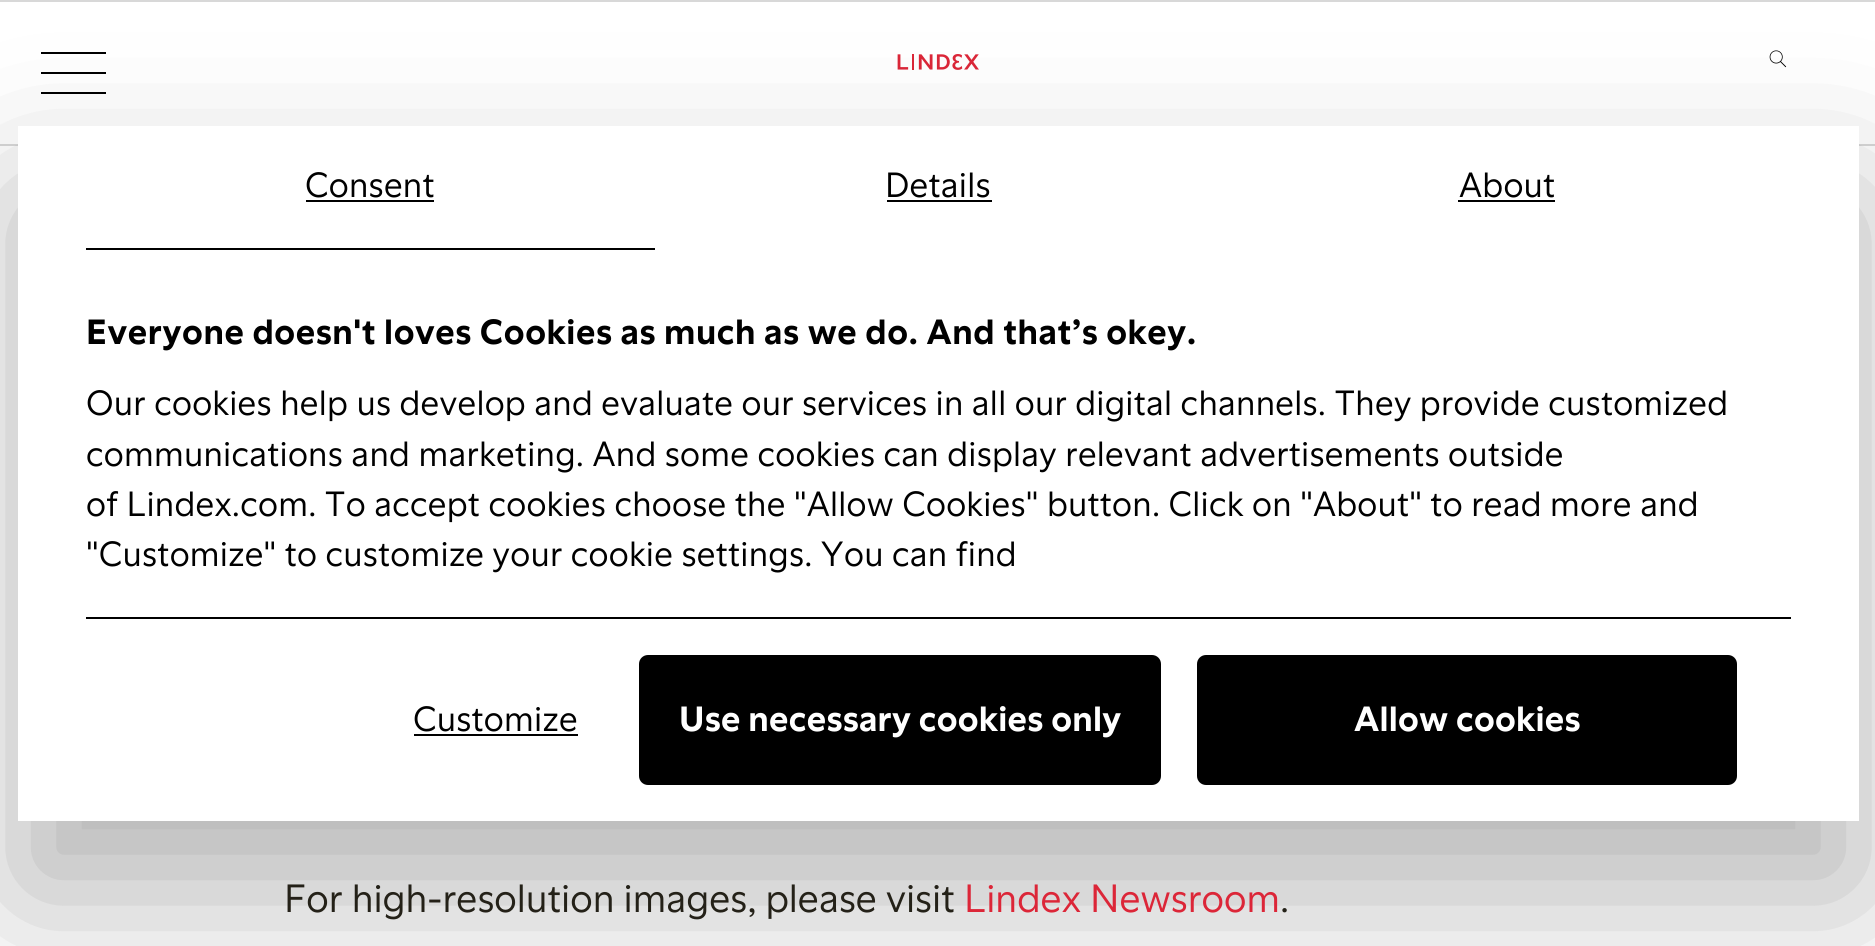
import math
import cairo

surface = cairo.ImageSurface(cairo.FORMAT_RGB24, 1875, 946)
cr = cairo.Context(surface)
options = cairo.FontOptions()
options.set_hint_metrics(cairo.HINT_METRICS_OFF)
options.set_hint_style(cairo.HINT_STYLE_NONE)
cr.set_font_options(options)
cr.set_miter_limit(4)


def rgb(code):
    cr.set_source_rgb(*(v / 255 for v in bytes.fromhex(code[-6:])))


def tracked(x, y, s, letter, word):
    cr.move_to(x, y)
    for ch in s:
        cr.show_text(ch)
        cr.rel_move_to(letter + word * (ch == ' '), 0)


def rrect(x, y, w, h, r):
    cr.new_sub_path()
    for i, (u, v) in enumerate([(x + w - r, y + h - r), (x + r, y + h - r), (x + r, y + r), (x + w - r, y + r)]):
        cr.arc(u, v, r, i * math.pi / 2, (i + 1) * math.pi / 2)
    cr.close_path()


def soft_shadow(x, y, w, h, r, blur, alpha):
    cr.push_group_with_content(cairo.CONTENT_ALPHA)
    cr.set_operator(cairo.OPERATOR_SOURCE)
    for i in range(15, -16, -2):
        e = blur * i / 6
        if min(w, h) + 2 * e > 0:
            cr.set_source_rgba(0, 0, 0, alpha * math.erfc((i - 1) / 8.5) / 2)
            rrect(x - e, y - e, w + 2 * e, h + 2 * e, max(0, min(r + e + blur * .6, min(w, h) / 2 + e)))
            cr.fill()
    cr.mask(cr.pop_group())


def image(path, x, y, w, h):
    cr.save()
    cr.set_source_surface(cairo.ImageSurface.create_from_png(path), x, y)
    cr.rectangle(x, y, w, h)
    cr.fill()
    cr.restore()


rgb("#ffffff")
cr.paint()
for x, y, w, h, color in [
    (0, 0, 1875, 2, "#d8d8d8"),
    (0, 144, 1875, 2, "#d8d8d8"),
    (41, 52, 65, 2, "#000000"),
    (41, 92, 65, 2, "#000000"),
    (41, 72, 65, 2, "#000000"),
]:
    rgb(color)
    cr.rectangle(x, y, w, h)
    cr.fill()
image("img/1.png", 897, 54, 82, 16)
image("img/2.png", 1769, 50, 18, 18)
rgb("#000000")
soft_shadow(18, 198, 1841, 695, 0, 76.5, 0.3)
for x, y, w, h, color in [
    (18, 126, 1841, 695, "#ffffff"),
    (86, 248, 569, 2, "#000000"),
    (306, 200, 128, 2, "#000000"),
    (887, 200, 105, 2, "#000000"),
    (1458, 200, 97, 2, "#000000"),
    (86, 617, 1705, 2, "#000000"),
    (414, 734, 164, 2, "#000000"),
]:
    rgb(color)
    cr.rectangle(x, y, w, h)
    cr.fill()
rrect(641.5, 657.5, 517, 125, 6.5)
cr.fill_preserve()
cr.set_line_width(5)
cr.stroke()
rrect(1199.5, 657.5, 535, 125, 6.5)
cr.fill_preserve()
cr.stroke()
cr.select_font_face("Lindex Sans")
cr.set_font_size(36)
for x, y, s in [
    (305, 197, "Consent"),
    (885, 197, "Details"),
    (1459, 197, "About"),
]:
    tracked(x, y, s, 0.23, 0)
cr.select_font_face("Lindex Sans", cairo.FONT_SLANT_NORMAL, cairo.FONT_WEIGHT_BOLD)
tracked(86, 344, "Everyone doesn't loves Cookies as much as we do. And that’s okey.", 0.55, 0)
cr.select_font_face("Lindex Sans")
for x, y, s in [
    (86, 415, "Our cookies help us develop and evaluate our services in all our digital channels. They provide customized"),
    (86, 466, "communications and marketing. And some cookies can display relevant advertisements outside"),
    (86, 516, "of Lindex.com. To accept cookies choose the \"Allow Cookies\" button. Click on \"About\" to read more and"),
    (86, 566, "\"Customize\" to customize your cookie settings. You can find"),
    (413, 731, "Customize"),
]:
    tracked(x, y, s, 0.23, 0)
cr.select_font_face("Lindex Sans", cairo.FONT_SLANT_NORMAL, cairo.FONT_WEIGHT_BOLD)
rgb("#ffffff")
tracked(679, 731, "Use necessary cookies only", 0.23, 0)
tracked(1354, 731, "Allow cookies", 0.23, 0)
cr.select_font_face("Lindex Sans")
cr.set_font_size(40.5)
rgb("#242118")
cr.move_to(284, 912)
cr.show_text("For high-resolution images, please visit")
rgb("#dc2638")
cr.move_to(964, 912)
cr.show_text("Lindex Newsroom")
rgb("#242118")
cr.move_to(1280, 912)
cr.show_text(".")
surface.write_to_png("page.png")
